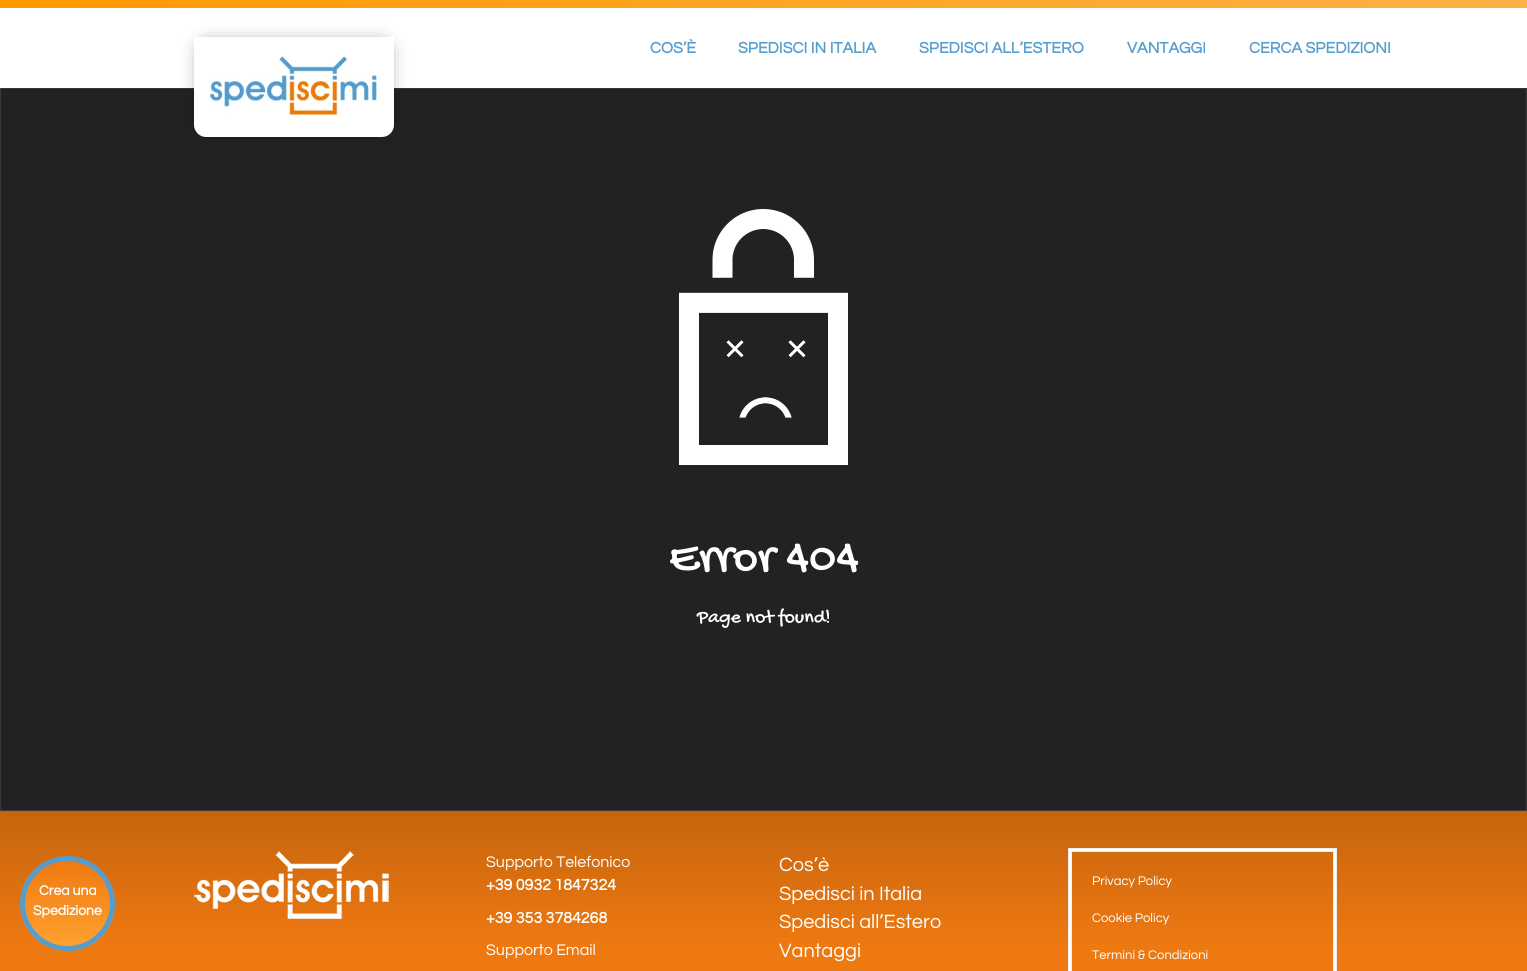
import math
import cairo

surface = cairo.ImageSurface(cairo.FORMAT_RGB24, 1527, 971)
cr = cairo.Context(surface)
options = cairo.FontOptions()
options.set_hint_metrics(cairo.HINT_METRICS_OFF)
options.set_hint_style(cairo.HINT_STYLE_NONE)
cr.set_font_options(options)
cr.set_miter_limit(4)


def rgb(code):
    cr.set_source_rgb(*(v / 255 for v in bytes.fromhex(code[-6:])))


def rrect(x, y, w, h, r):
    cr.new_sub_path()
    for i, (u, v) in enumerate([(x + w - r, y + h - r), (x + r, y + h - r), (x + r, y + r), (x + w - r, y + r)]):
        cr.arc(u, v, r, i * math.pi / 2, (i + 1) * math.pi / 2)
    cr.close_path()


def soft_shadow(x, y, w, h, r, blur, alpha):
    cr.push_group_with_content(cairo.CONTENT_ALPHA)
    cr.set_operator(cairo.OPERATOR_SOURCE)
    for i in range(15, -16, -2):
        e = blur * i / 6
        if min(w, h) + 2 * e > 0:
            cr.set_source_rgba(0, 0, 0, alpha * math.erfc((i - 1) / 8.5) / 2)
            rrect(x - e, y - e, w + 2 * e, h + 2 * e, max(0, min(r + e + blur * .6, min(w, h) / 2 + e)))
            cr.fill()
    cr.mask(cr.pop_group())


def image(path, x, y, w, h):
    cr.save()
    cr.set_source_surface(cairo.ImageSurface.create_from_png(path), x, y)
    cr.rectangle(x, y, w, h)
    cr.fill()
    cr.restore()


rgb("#ffffff")
cr.paint()
rgb("#222222")
cr.rectangle(0.5, 88.5, 1526, 722)
cr.fill_preserve()
rgb("#3a3a3a")
cr.set_line_width(1)
cr.stroke()
rgb("#373737")
cr.rectangle(0, 88, 1527, 1)
cr.fill()
gradient = cairo.LinearGradient(0, -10, 1527, -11)
gradient.add_color_stop_rgba(0, 1, 0.6, 0, 1)
gradient.add_color_stop_rgba(1, 0.988, 0.69, 0.271, 1)
cr.set_source(gradient)
cr.rectangle(0, 0, 1527, 8)
cr.fill()
rgb("#000000")
soft_shadow(204, 47, 180, 80, 2, 10, 0.7)
rgb("#ffffff")
cr.new_path()
cr.move_to(194, 37)
cr.line_to(394, 37)
cr.line_to(394, 125)
cr.curve_to(394, 131.5, 388.5, 137, 382, 137)
cr.line_to(206, 137)
cr.curve_to(199.5, 137, 194, 131.5, 194, 125)
cr.close_path()
cr.fill()
image("img/1.png", 209, 56, 168, 60)
image("img/2.png", 679, 209, 169, 256)
gradient = cairo.LinearGradient(764, 811, 764, 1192)
gradient.add_color_stop_rgba(0, 0.776, 0.392, 0.055, 1)
gradient.add_color_stop_rgba(0.36, 0.937, 0.475, 0.067, 1)
gradient.add_color_stop_rgba(1, 0.937, 0.475, 0.067, 1)
cr.set_source(gradient)
cr.rectangle(0, 811, 1527, 160)
cr.fill()
cr.save()
rrect(20, 856, 95, 95, 47.5)
cr.clip()
gradient = cairo.LinearGradient(68, 861, 68, 946)
gradient.add_color_stop_rgba(0, 0.937, 0.475, 0.067, 1)
gradient.add_color_stop_rgba(1, 1, 0.631, 0.18, 1)
cr.set_source(gradient)
cr.rectangle(20, 861, 95, 85)
cr.fill()
cr.restore()
cr.arc(67.5, 903.5, 45, 0, 2 * math.pi)
rgb("#569dcf")
cr.set_line_width(5)
cr.stroke()
image("img/3.png", 194, 851, 195, 68)
cr.rectangle(1069.5, 849.5, 266, 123)
rgb("#eeeeee")
cr.set_line_width(3)
cr.stroke()
cr.rectangle(1071.5, 851.5, 262, 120)
cr.set_line_width(1)
cr.stroke()
cr.rectangle(1070, 850, 265, 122)
rgb("#ffffff")
cr.set_line_width(2)
cr.stroke()
cr.select_font_face("Questrial", cairo.FONT_SLANT_NORMAL, cairo.FONT_WEIGHT_BOLD)
cr.set_font_size(16)
rgb("#569dcf")
for x, y, s in [
    (650, 53, "COS’È"),
    (738, 53, "SPEDISCI IN ITALIA"),
    (919, 53, "SPEDISCI ALL’ESTERO"),
    (1127, 53, "VANTAGGI"),
    (1249, 53, "CERCA SPEDIZIONI"),
]:
    cr.move_to(x, y)
    cr.show_text(s)
cr.select_font_face("Gochi Hand")
cr.set_font_size(48)
rgb("#ffffff")
cr.move_to(669, 569)
cr.show_text("Error 404")
cr.set_font_size(20)
cr.move_to(697, 622)
cr.show_text("Page not found!")
cr.select_font_face("Questrial", cairo.FONT_SLANT_NORMAL, cairo.FONT_WEIGHT_BOLD)
cr.set_font_size(14)
cr.move_to(39, 895)
cr.show_text("Crea una")
cr.move_to(33, 915)
cr.show_text("Spedizione")
cr.select_font_face("Questrial")
cr.set_font_size(16)
cr.move_to(486, 867)
cr.show_text("Supporto Telefonico")
cr.select_font_face("Questrial", cairo.FONT_SLANT_NORMAL, cairo.FONT_WEIGHT_BOLD)
cr.move_to(486, 890)
cr.show_text("+39 0932 1847324")
cr.move_to(486, 923)
cr.show_text("+39 353 3784268")
cr.select_font_face("Questrial")
cr.move_to(486, 955)
cr.show_text("Supporto Email")
cr.set_font_size(20)
for x, y, s in [
    (779, 871, "Cos’è"),
    (779, 900, "Spedisci in Italia"),
    (779, 928, "Spedisci all’Estero"),
    (779, 957, "Vantaggi"),
]:
    cr.move_to(x, y)
    cr.show_text(s)
cr.set_font_size(13)
for x, y, s in [
    (1092, 885, "Privacy Policy"),
    (1092, 922, "Cookie Policy"),
    (1092, 959, "Termini & Condizioni"),
]:
    cr.move_to(x, y)
    cr.show_text(s)
surface.write_to_png("page.png")
